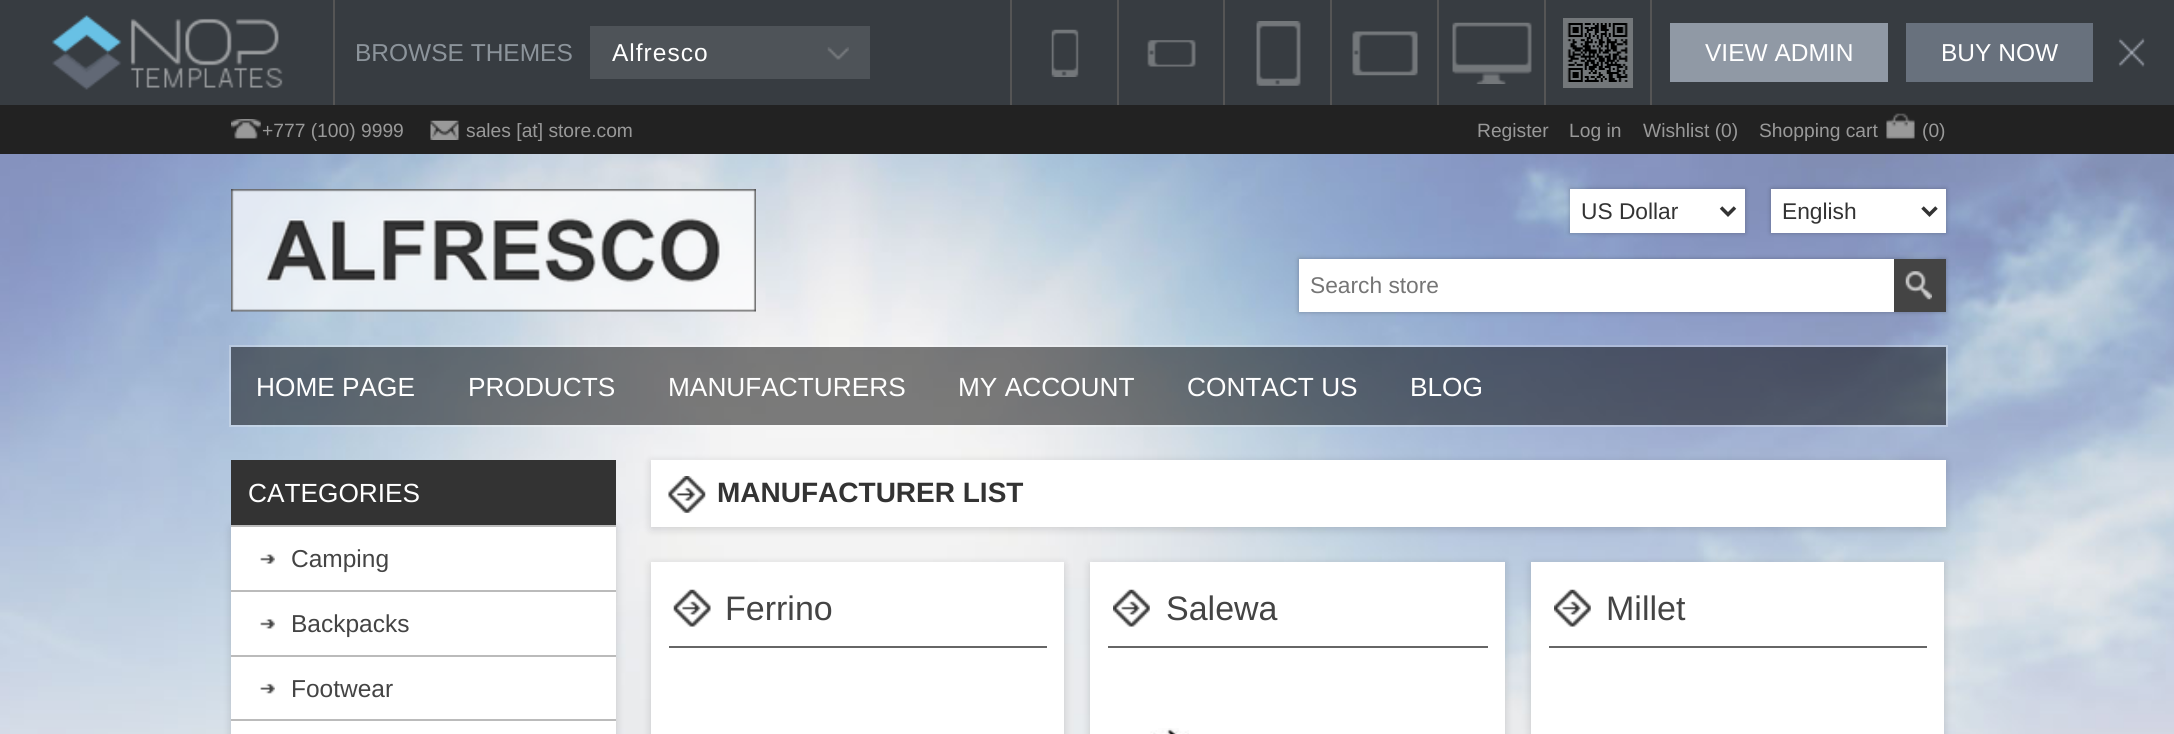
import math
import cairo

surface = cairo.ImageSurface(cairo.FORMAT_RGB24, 2174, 734)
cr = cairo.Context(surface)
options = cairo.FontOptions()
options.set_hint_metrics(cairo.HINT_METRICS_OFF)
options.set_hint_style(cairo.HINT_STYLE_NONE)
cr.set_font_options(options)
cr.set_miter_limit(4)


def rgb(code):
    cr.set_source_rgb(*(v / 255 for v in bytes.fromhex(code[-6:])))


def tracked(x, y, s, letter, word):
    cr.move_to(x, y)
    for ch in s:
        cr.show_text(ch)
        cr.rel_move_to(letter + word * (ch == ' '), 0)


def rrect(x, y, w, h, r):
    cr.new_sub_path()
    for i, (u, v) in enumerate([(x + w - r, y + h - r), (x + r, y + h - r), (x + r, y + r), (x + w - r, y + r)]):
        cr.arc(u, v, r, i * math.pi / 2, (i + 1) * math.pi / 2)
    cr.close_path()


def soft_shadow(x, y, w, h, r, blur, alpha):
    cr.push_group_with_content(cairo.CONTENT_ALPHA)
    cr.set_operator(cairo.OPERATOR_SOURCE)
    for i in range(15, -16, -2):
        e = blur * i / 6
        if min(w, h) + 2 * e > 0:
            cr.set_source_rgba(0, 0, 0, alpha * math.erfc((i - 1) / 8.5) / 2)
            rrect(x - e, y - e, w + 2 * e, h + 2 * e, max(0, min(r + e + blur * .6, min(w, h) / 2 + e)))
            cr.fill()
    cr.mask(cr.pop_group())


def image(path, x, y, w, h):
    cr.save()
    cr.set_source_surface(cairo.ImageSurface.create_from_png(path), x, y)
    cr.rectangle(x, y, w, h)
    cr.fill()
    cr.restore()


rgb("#ffffff")
cr.paint()
rgb("#373c41")
cr.rectangle(0, 0, 2174, 105)
cr.fill()
image("img/1.png", 52, 15, 231, 75)
rgb("#555555")
cr.rectangle(333, 0, 2, 105)
cr.fill()
rgb("#4e5358")
cr.rectangle(590, 26, 280, 53)
cr.fill()
image("img/2.png", 827, 47, 22, 13)
image("img/3.png", 1051, 29, 28, 48)
rgb("#555555")
cr.rectangle(1010, 0, 2, 105)
cr.fill()
image("img/4.png", 1147, 40, 49, 27)
cr.rectangle(1117, 0, 2, 105)
cr.fill()
image("img/5.png", 1256, 21, 45, 65)
cr.rectangle(1223, 0, 2, 105)
cr.fill()
image("img/6.png", 1352, 31, 66, 45)
cr.rectangle(1330, 0, 2, 105)
cr.fill()
image("img/7.png", 1452, 22, 80, 62)
for x, y, w, h, color in [
    (1437, 0, 2, 105, "#555555"),
    (1650, 0, 2, 105, "#555555"),
    (1544, 0, 2, 105, "#555555"),
    (1563, 18, 70, 70, "#73777a"),
]:
    rgb(color)
    cr.rectangle(x, y, w, h)
    cr.fill()
image("img/8.png", 1567, 23, 61, 59)
rgb("#9099a5")
cr.rectangle(1670, 23, 218, 59)
cr.fill()
rgb("#68717d")
cr.rectangle(1906, 23, 187, 59)
cr.fill()
image("img/9.png", 2118, 38, 27, 29)
image("img/10.png", 0, 154, 2174, 580)
rgb("#222222")
cr.rectangle(0, 105, 2174, 49)
cr.fill()
image("img/11.png", 231, 119, 30, 20)
image("img/12.png", 430, 120, 29, 20)
image("img/13.png", 1886, 113, 29, 26)
image("img/14.png", 231, 189, 525, 123)
rgb("#000000")
soft_shadow(1570, 189, 175, 44, 0, 2.5, 0.25)
rgb("#ffffff")
cr.rectangle(1570, 189, 175, 44)
cr.fill()
cr.new_path()
cr.move_to(1721, 207.5)
cr.line_to(1728, 214.5)
cr.line_to(1735, 207.5)
rgb("#333333")
cr.set_line_width(3.5)
cr.stroke()
rgb("#000000")
soft_shadow(1771, 189, 175, 44, 0, 2.5, 0.25)
rgb("#ffffff")
cr.rectangle(1771, 189, 175, 44)
cr.fill()
cr.new_path()
cr.move_to(1922.5, 207.5)
cr.line_to(1929.5, 214.5)
cr.line_to(1936.5, 207.5)
rgb("#333333")
cr.stroke()
rgb("#000000")
soft_shadow(1299, 259, 647, 53, 0, 2.5, 0.25)
rgb("#ffffff")
cr.rectangle(1299, 259, 595, 53)
cr.fill()
rgb("#444444")
cr.rectangle(1894, 259, 52, 53)
cr.fill()
image("img/15.png", 1905, 271, 27, 29)
cr.rectangle(230, 346, 1717, 80)
cr.set_source_rgba(1, 1, 1, 0.25)
cr.set_line_width(2)
cr.stroke()
cr.set_source_rgba(0, 0, 0, 0.5)
cr.rectangle(231, 347, 1715, 78)
cr.fill()
rgb("#000000")
soft_shadow(231, 527, 385, 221, 0, 4.5, 0.15)
rgb("#333333")
cr.rectangle(231, 460, 385, 65)
cr.fill()
rgb("#ffffff")
cr.rectangle(231, 527, 385, 207)
cr.fill()
image("img/16.png", 260, 554, 15, 10)
rgb("#bbbbbb")
cr.rectangle(231, 525, 385, 2)
cr.fill()
image("img/17.png", 260, 619, 15, 10)
cr.rectangle(231, 590, 385, 2)
cr.fill()
image("img/18.png", 260, 683, 15, 11)
cr.rectangle(231, 655, 385, 2)
cr.fill()
cr.rectangle(231, 719, 385, 2)
cr.fill()
rgb("#000000")
soft_shadow(651, 462, 1295, 67, 0, 4.5, 0.15)
rgb("#ffffff")
cr.rectangle(651, 460, 1295, 67)
cr.fill()
image("img/19.png", 668, 476, 38, 37)
rgb("#000000")
soft_shadow(651, 564, 413, 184, 0, 4.5, 0.15)
rgb("#ffffff")
cr.rectangle(651, 562, 413, 172)
cr.fill()
image("img/20.png", 673, 589, 38, 38)
rgb("#666666")
cr.rectangle(669, 646, 378, 2)
cr.fill()
rgb("#000000")
soft_shadow(1090, 564, 415, 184, 0, 4.5, 0.15)
rgb("#ffffff")
cr.rectangle(1090, 562, 415, 172)
cr.fill()
image("img/21.png", 1113, 589, 37, 38)
rgb("#666666")
cr.rectangle(1108, 646, 380, 2)
cr.fill()
image("img/22.png", 1150, 728, 39, 6)
rgb("#000000")
soft_shadow(1531, 564, 413, 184, 0, 4.5, 0.15)
rgb("#ffffff")
cr.rectangle(1531, 562, 413, 172)
cr.fill()
image("img/21.png", 1554, 589, 37, 38)
rgb("#666666")
cr.rectangle(1549, 646, 378, 2)
cr.fill()
cr.select_font_face("Liberation Sans")
cr.set_font_size(24.5)
rgb("#8c949b")
cr.move_to(355, 61)
cr.show_text("BROWSE THEMES")
rgb("#ffffff")
tracked(612, 61, "Alfresco", 1, 0)
cr.move_to(1705, 61)
cr.show_text("VIEW ADMIN")
cr.move_to(1941, 61)
cr.show_text("BUY NOW")
cr.set_font_size(19.25)
rgb("#999999")
for x, y, s in [
    (262, 137, "+777 (100) 9999"),
    (466, 137, "sales [at] store.com"),
    (1477, 137, "Register"),
    (1569, 137, "Log in"),
    (1643, 137, "Wishlist (0)"),
    (1759, 137, "Shopping cart"),
    (1922, 137, "(0)"),
]:
    cr.move_to(x, y)
    cr.show_text(s)
cr.set_font_size(22.75)
rgb("#333333")
cr.move_to(1581, 219)
cr.show_text("US Dollar")
cr.move_to(1782, 219)
cr.show_text("English")
rgb("#757575")
cr.move_to(1310, 293)
cr.show_text("Search store")
cr.set_font_size(26.25)
rgb("#ffffff")
for x, y, s in [
    (256, 396, "HOME PAGE"),
    (468, 396, "PRODUCTS"),
    (668, 396, "MANUFACTURERS"),
    (958, 396, "MY ACCOUNT"),
    (1187, 396, "CONTACT US"),
    (1410, 396, "BLOG"),
    (248, 502, "CATEGORIES"),
]:
    cr.move_to(x, y)
    cr.show_text(s)
cr.set_font_size(24.5)
rgb("#444444")
for x, y, s in [
    (291, 567, "Camping"),
    (291, 632, "Backpacks"),
    (291, 697, "Footwear"),
]:
    cr.move_to(x, y)
    cr.show_text(s)
cr.select_font_face("Liberation Sans", cairo.FONT_SLANT_NORMAL, cairo.FONT_WEIGHT_BOLD)
cr.set_font_size(28)
rgb("#333333")
cr.move_to(717, 502)
cr.show_text("MANUFACTURER LIST")
cr.select_font_face("Liberation Sans")
cr.set_font_size(34)
rgb("#444444")
for x, y, s in [
    (725, 620, "Ferrino"),
    (1166, 620, "Salewa"),
    (1606, 620, "Millet"),
]:
    cr.move_to(x, y)
    cr.show_text(s)
surface.write_to_png("page.png")
